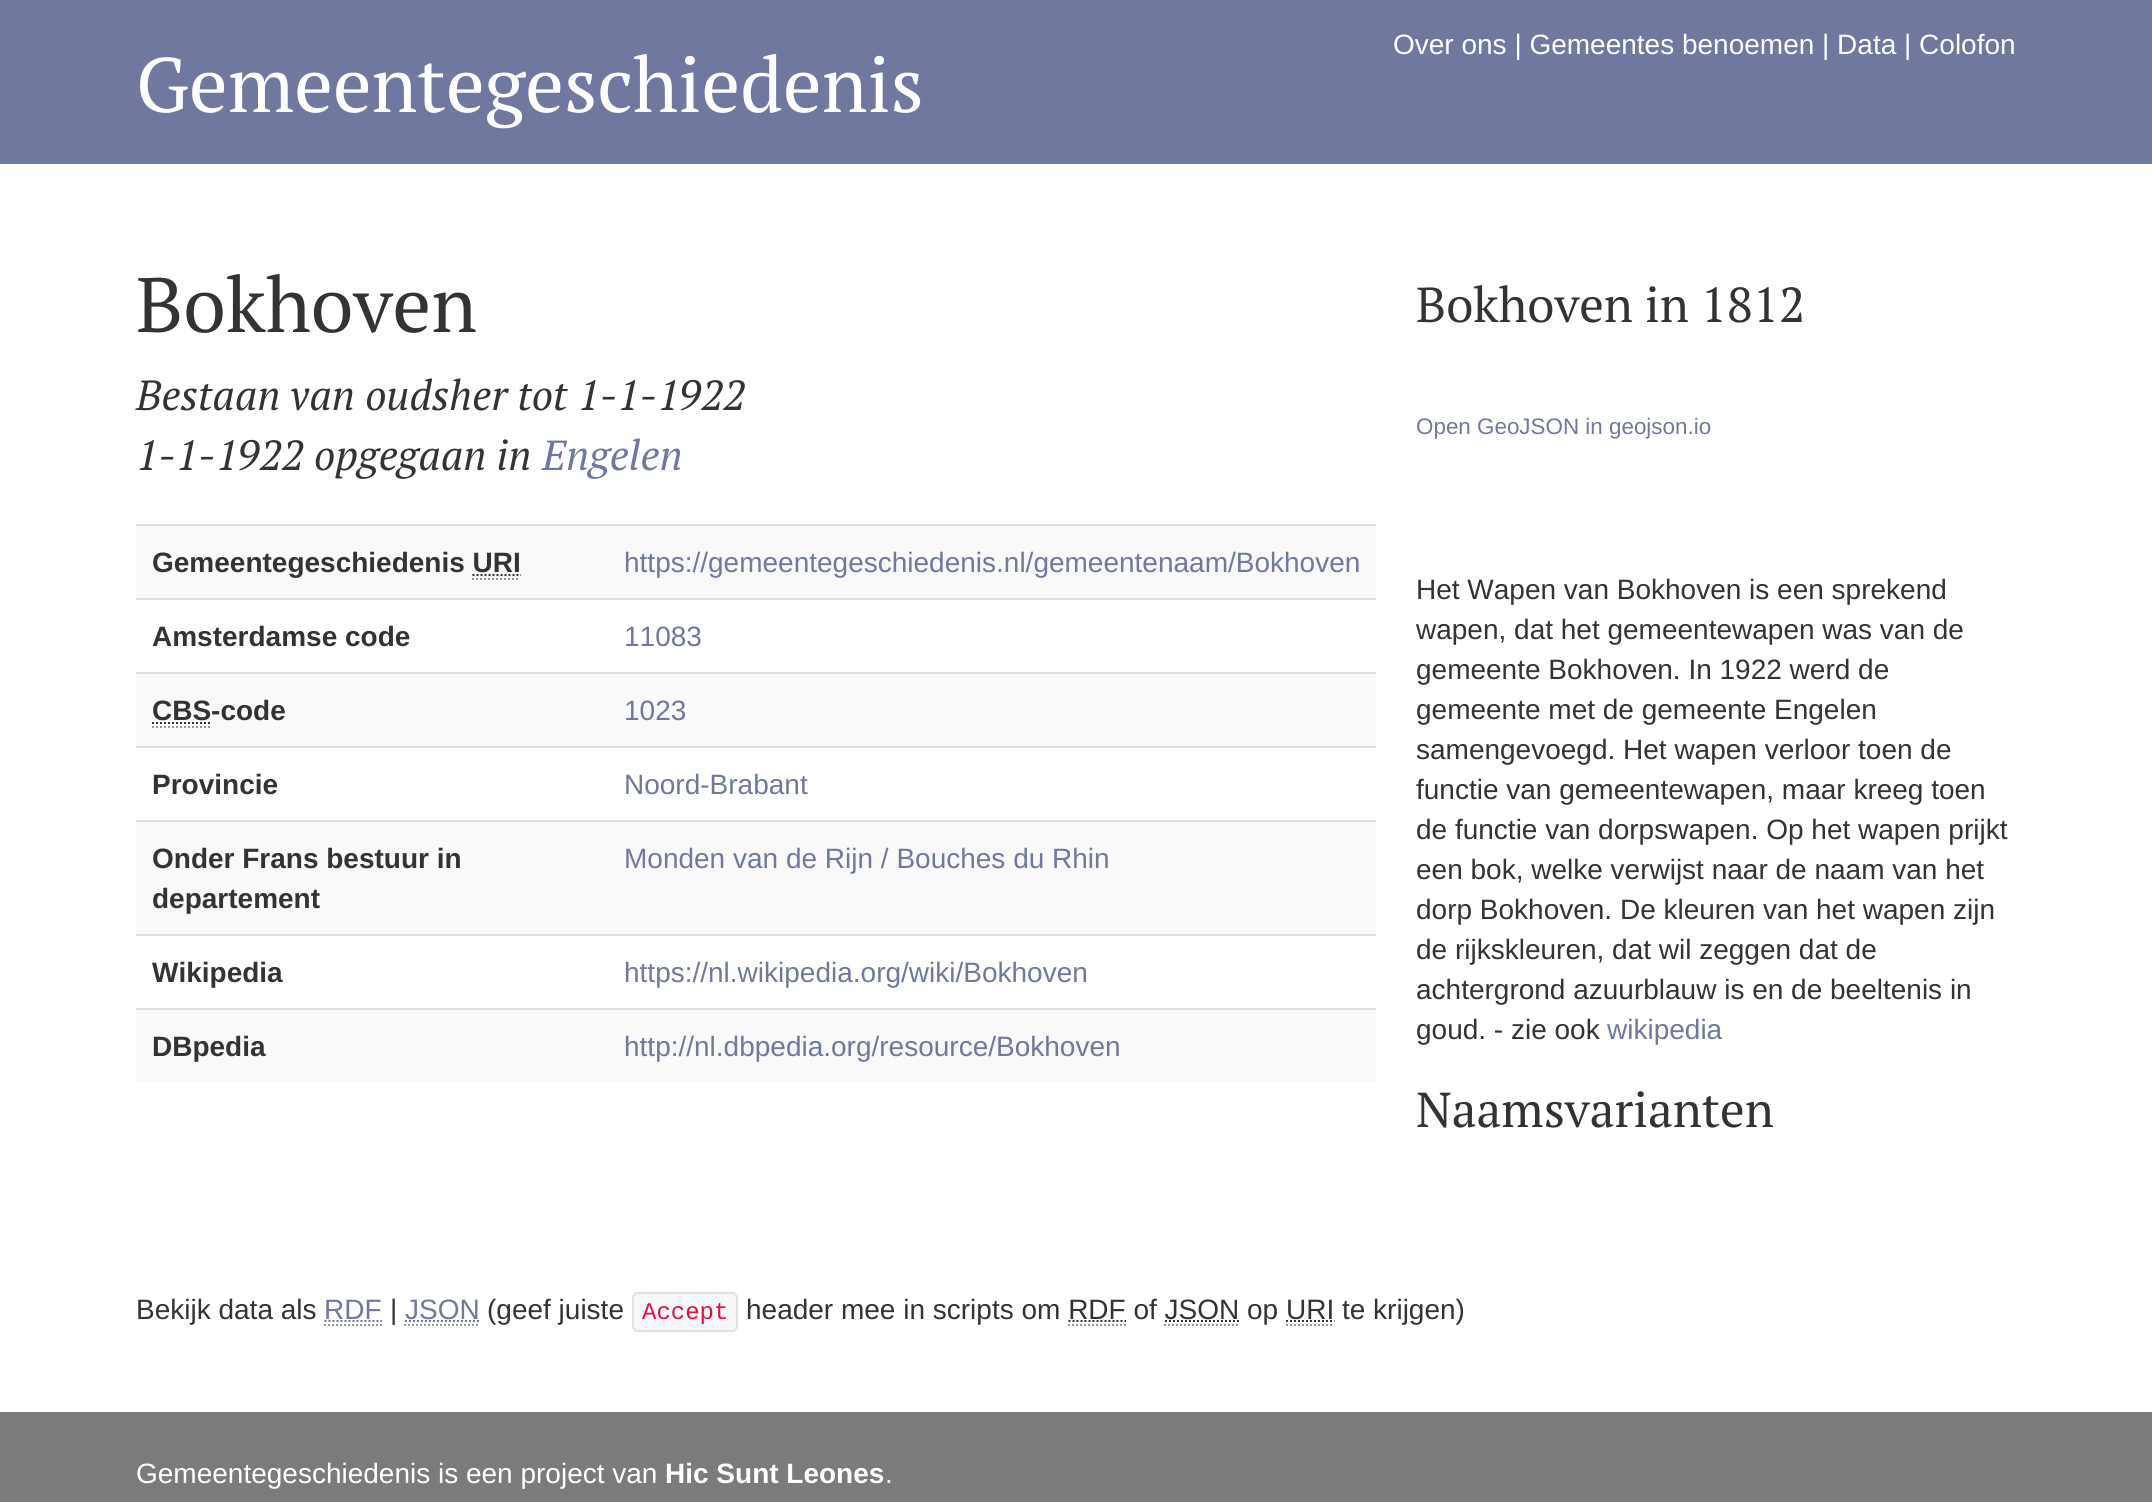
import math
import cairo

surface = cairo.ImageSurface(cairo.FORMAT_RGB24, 2152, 1502)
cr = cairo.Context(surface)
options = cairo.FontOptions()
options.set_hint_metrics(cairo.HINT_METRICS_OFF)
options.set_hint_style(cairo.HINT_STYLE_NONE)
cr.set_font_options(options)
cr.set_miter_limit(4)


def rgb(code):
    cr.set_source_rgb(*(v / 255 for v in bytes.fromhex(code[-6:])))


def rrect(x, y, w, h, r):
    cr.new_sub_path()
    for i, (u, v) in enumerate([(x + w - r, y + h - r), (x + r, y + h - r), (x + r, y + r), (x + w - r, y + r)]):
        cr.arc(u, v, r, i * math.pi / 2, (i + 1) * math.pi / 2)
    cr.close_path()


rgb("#7b7b7b")
cr.paint()
for x, y, w, h, color in [
    (0, 0, 2152, 164, "#70789f"),
    (0, 164, 2152, 1248, "#ffffff"),
    (136, 526, 1240, 72, "#f9f9f9"),
]:
    rgb(color)
    cr.rectangle(x, y, w, h)
    cr.fill()
cr.new_path()
cr.move_to(472.5, 575)
cr.line_to(521, 575)
rgb("#333333")
cr.set_dash([2, 2])
cr.stroke()
cr.new_path()
cr.move_to(472, 579)
cr.line_to(520, 579)
rgb("#999999")
cr.stroke()
for x, y, w, h, color in [
    (136, 524, 1240, 2, "#dddddd"),
    (136, 598, 1240, 2, "#dddddd"),
    (136, 674, 1240, 72, "#f9f9f9"),
]:
    rgb(color)
    cr.rectangle(x, y, w, h)
    cr.fill()
cr.new_path()
cr.move_to(152, 727)
cr.line_to(212, 727)
rgb("#999999")
cr.stroke()
cr.new_path()
cr.move_to(152, 723)
cr.line_to(211, 723)
rgb("#333333")
cr.stroke()
for x, y, w, h, color in [
    (136, 672, 1240, 2, "#dddddd"),
    (136, 746, 1240, 2, "#dddddd"),
    (136, 822, 1240, 112, "#f9f9f9"),
    (136, 820, 1240, 2, "#dddddd"),
    (136, 934, 1240, 2, "#dddddd"),
    (136, 1010, 1240, 72, "#f9f9f9"),
    (136, 1008, 1240, 2, "#dddddd"),
]:
    rgb(color)
    cr.rectangle(x, y, w, h)
    cr.fill()
cr.new_path()
cr.move_to(324, 1325)
cr.line_to(382, 1325)
rgb("#999999")
cr.stroke()
cr.new_path()
cr.move_to(324.5, 1321)
cr.line_to(382, 1321)
rgb("#70789f")
cr.stroke()
cr.new_path()
cr.move_to(404, 1325)
cr.line_to(480, 1325)
rgb("#999999")
cr.stroke()
cr.new_path()
cr.move_to(405, 1321)
cr.line_to(479.5, 1321)
rgb("#70789f")
cr.stroke()
rgb("#f7f7f9")
rrect(633, 1293, 104, 38, 5)
cr.fill_preserve()
rgb("#e1e1e8")
cr.set_dash([])
cr.stroke()
cr.new_path()
cr.move_to(1068.5, 1321)
cr.line_to(1126, 1321)
rgb("#333333")
cr.set_dash([2, 2])
cr.stroke()
cr.new_path()
cr.move_to(1165, 1321)
cr.line_to(1239.5, 1321)
cr.stroke()
cr.new_path()
cr.move_to(1286, 1321)
cr.line_to(1334.5, 1321)
cr.stroke()
cr.select_font_face("Liberation Sans")
cr.set_font_size(28)
rgb("#ffffff")
cr.move_to(1393, 54)
cr.show_text("Over ons | Gemeentes benoemen | Data | Colofon")
cr.select_font_face("PT Serif")
cr.set_font_size(77)
cr.move_to(136, 112)
cr.show_text("Gemeentegeschiedenis")
rgb("#333333")
cr.move_to(136, 332)
cr.show_text("Bokhoven")
cr.select_font_face("PT Serif", cairo.FONT_SLANT_ITALIC)
cr.set_font_size(42)
cr.move_to(136, 410)
cr.show_text("Bestaan van oudsher tot 1-1-1922")
cr.move_to(136, 470)
cr.show_text("1-1-1922 opgegaan in")
rgb("#70789f")
cr.move_to(542, 470)
cr.show_text("Engelen")
cr.select_font_face("Liberation Sans", cairo.FONT_SLANT_NORMAL, cairo.FONT_WEIGHT_BOLD)
cr.set_font_size(28)
rgb("#333333")
cr.move_to(152, 572)
cr.show_text("Gemeentegeschiedenis URI")
cr.select_font_face("Liberation Sans")
rgb("#70789f")
cr.move_to(624, 572)
cr.show_text("https://gemeentegeschiedenis.nl/gemeentenaam/Bokhoven")
cr.select_font_face("Liberation Sans", cairo.FONT_SLANT_NORMAL, cairo.FONT_WEIGHT_BOLD)
rgb("#333333")
cr.move_to(152, 646)
cr.show_text("Amsterdamse code")
cr.select_font_face("Liberation Sans")
rgb("#70789f")
cr.move_to(624, 646)
cr.show_text("11083")
cr.select_font_face("Liberation Sans", cairo.FONT_SLANT_NORMAL, cairo.FONT_WEIGHT_BOLD)
rgb("#333333")
cr.move_to(152, 720)
cr.show_text("CBS-code")
cr.select_font_face("Liberation Sans")
rgb("#70789f")
cr.move_to(624, 720)
cr.show_text("1023")
cr.select_font_face("Liberation Sans", cairo.FONT_SLANT_NORMAL, cairo.FONT_WEIGHT_BOLD)
rgb("#333333")
cr.move_to(152, 794)
cr.show_text("Provincie")
cr.select_font_face("Liberation Sans")
rgb("#70789f")
cr.move_to(624, 794)
cr.show_text("Noord-Brabant")
cr.select_font_face("Liberation Sans", cairo.FONT_SLANT_NORMAL, cairo.FONT_WEIGHT_BOLD)
rgb("#333333")
cr.move_to(152, 868)
cr.show_text("Onder Frans bestuur in")
cr.move_to(152, 908)
cr.show_text("departement")
cr.select_font_face("Liberation Sans")
rgb("#70789f")
cr.move_to(624, 868)
cr.show_text("Monden van de Rijn / Bouches du Rhin")
cr.select_font_face("Liberation Sans", cairo.FONT_SLANT_NORMAL, cairo.FONT_WEIGHT_BOLD)
rgb("#333333")
cr.move_to(152, 982)
cr.show_text("Wikipedia")
cr.select_font_face("Liberation Sans")
rgb("#70789f")
cr.move_to(624, 982)
cr.show_text("https://nl.wikipedia.org/wiki/Bokhoven")
cr.select_font_face("Liberation Sans", cairo.FONT_SLANT_NORMAL, cairo.FONT_WEIGHT_BOLD)
rgb("#333333")
cr.move_to(152, 1056)
cr.show_text("DBpedia")
cr.select_font_face("Liberation Sans")
rgb("#70789f")
cr.move_to(624, 1056)
cr.show_text("http://nl.dbpedia.org/resource/Bokhoven")
cr.select_font_face("PT Serif")
cr.set_font_size(49)
rgb("#333333")
cr.move_to(1416, 322)
cr.show_text("Bokhoven in 1812")
cr.select_font_face("Liberation Sans")
cr.set_font_size(22.4)
rgb("#70789f")
cr.move_to(1416, 434)
cr.show_text("Open GeoJSON in geojson.io")
cr.set_font_size(28)
rgb("#333333")
for x, y, s in [
    (1416, 599, "Het Wapen van Bokhoven is een sprekend"),
    (1416, 639, "wapen, dat het gemeentewapen was van de"),
    (1416, 679, "gemeente Bokhoven. In 1922 werd de"),
    (1416, 719, "gemeente met de gemeente Engelen"),
    (1416, 759, "samengevoegd. Het wapen verloor toen de"),
    (1416, 799, "functie van gemeentewapen, maar kreeg toen"),
    (1416, 839, "de functie van dorpswapen. Op het wapen prijkt"),
    (1416, 879, "een bok, welke verwijst naar de naam van het"),
    (1416, 919, "dorp Bokhoven. De kleuren van het wapen zijn"),
    (1416, 959, "de rijkskleuren, dat wil zeggen dat de"),
    (1416, 999, "achtergrond azuurblauw is en de beeltenis in"),
    (1416, 1039, "goud. - zie ook"),
]:
    cr.move_to(x, y)
    cr.show_text(s)
rgb("#70789f")
cr.move_to(1607, 1039)
cr.show_text("wikipedia")
cr.select_font_face("PT Serif")
cr.set_font_size(49)
rgb("#333333")
cr.move_to(1416, 1127)
cr.show_text("Naamsvarianten")
cr.select_font_face("Liberation Sans")
cr.set_font_size(28)
cr.move_to(136, 1319)
cr.show_text("Bekijk data als")
rgb("#70789f")
cr.move_to(324, 1319)
cr.show_text("RDF")
rgb("#333333")
cr.move_to(390, 1319)
cr.show_text("|")
rgb("#70789f")
cr.move_to(405, 1319)
cr.show_text("JSON")
rgb("#333333")
cr.move_to(487, 1319)
cr.show_text("(geef juiste")
cr.select_font_face("Liberation Mono")
cr.set_font_size(24)
rgb("#dd1144")
cr.move_to(642, 1319)
cr.show_text("Accept")
cr.select_font_face("Liberation Sans")
cr.set_font_size(28)
rgb("#333333")
cr.move_to(746, 1319)
cr.show_text("header mee in scripts om RDF of JSON op URI te krijgen)")
cr.new_path()
cr.move_to(1068, 1325)
cr.line_to(1126, 1325)
rgb("#999999")
cr.stroke()
cr.new_path()
cr.move_to(1164, 1325)
cr.line_to(1240, 1325)
cr.stroke()
cr.new_path()
cr.move_to(1286, 1325)
cr.line_to(1334, 1325)
cr.stroke()
rgb("#ffffff")
cr.move_to(136, 1483)
cr.show_text("Gemeentegeschiedenis is een project van")
cr.select_font_face("Liberation Sans", cairo.FONT_SLANT_NORMAL, cairo.FONT_WEIGHT_BOLD)
cr.move_to(665, 1483)
cr.show_text("Hic Sunt Leones")
cr.select_font_face("Liberation Sans")
cr.move_to(885, 1483)
cr.show_text(".")
surface.write_to_png("page.png")
